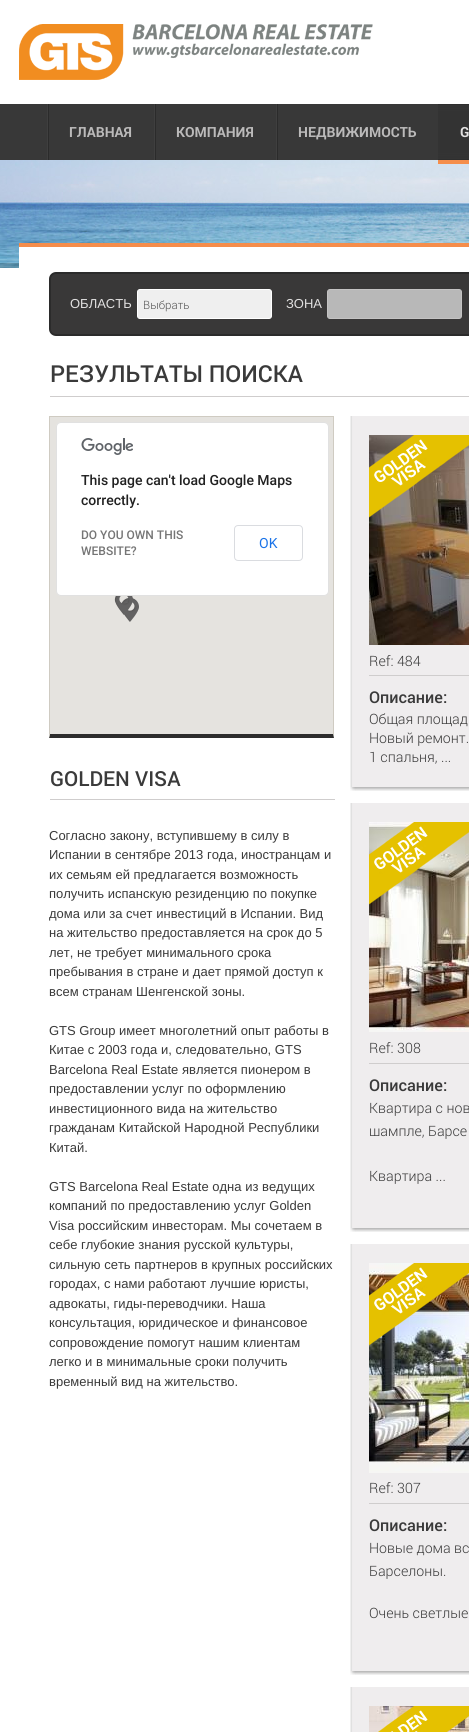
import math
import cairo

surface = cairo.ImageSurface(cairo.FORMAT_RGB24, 469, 1732)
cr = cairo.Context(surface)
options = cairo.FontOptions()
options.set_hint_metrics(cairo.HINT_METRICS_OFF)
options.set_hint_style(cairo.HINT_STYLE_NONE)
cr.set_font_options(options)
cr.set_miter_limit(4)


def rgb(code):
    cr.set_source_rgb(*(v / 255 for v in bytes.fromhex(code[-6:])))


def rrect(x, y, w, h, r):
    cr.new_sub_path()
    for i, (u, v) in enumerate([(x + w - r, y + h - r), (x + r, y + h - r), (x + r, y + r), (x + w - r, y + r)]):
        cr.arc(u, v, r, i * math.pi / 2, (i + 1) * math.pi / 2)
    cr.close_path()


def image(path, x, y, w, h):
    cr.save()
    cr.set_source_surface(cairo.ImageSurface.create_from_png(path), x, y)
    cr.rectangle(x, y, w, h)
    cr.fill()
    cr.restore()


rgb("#ffffff")
cr.paint()
rgb("#383838")
cr.rectangle(0, 104, 438, 56)
cr.fill()
image("img/1.png", 19, 24, 354, 56)
image("img/2.png", 47, 104, 2, 56)
image("img/2.png", 154, 104, 2, 56)
image("img/2.png", 276, 104, 2, 56)
image("img/4.png", 0, 160, 469, 108)
image("img/3.png", 438, 104, 31, 60)
rgb("#ffffff")
cr.rectangle(19, 247, 450, 21)
cr.fill()
rgb("#f58d4b")
cr.rectangle(19, 243, 450, 4)
cr.fill()
rgb("#393838")
rrect(50, 273, 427, 62, 6)
cr.fill_preserve()
rgb("#2b2b2b")
cr.stroke()
rgb("#efefef")
rrect(137.5, 289.5, 134, 29, 2.5)
cr.fill_preserve()
rgb("#ffffff")
cr.set_line_width(1)
cr.stroke()
rgb("#b8b8b8")
rrect(327.5, 289.5, 134, 29, 2.5)
cr.fill_preserve()
rgb("#c4c3c3")
cr.stroke()
rgb("#cfcdcd")
cr.rectangle(50, 396, 419, 1)
cr.fill()
rgb("#cfcbc2")
cr.rectangle(49, 416, 285, 1)
cr.fill()
cr.new_path()
cr.move_to(334, 416)
cr.line_to(334, 738)
cr.line_to(333, 734)
cr.line_to(333, 417)
cr.close_path()
cr.fill()
rgb("#2d2d2d")
cr.new_path()
cr.move_to(334, 738)
cr.line_to(49, 738)
cr.line_to(50, 734)
cr.line_to(333, 734)
cr.close_path()
cr.fill()
rgb("#cfcbc2")
cr.new_path()
cr.move_to(49, 738)
cr.line_to(49, 416)
cr.line_to(50, 417)
cr.line_to(50, 734)
cr.close_path()
cr.fill()
rgb("#e5e3df")
cr.rectangle(50, 417, 283, 317)
cr.fill()
image("img/6.png", 121, 598, 18, 24)
image("img/5.png", 114, 596, 19, 19)
rgb("#ffffff")
rrect(56, 422, 273, 174, 5)
cr.fill()
rrect(56.5, 422.5, 272, 173, 4.5)
cr.set_source_rgba(0, 0, 0, 0.12)
cr.stroke()
image("img/7.png", 81, 438, 52, 17)
rrect(234.5, 525.5, 68, 35, 3.5)
rgb("#dadce0")
cr.stroke()
rgb("#cfcdcd")
cr.rectangle(50, 799, 285, 1)
cr.fill()
image("img/8.png", 350, 416, 119, 371)
image("img/9.png", 369, 435, 100, 210)
image("img/10.png", 369, 435, 100, 83)
cr.rectangle(369, 675, 100, 1)
cr.fill()
image("img/11.png", 350, 787, 119, 4)
image("img/12.png", 350, 803, 119, 425)
image("img/13.png", 369, 822, 100, 210)
image("img/14.png", 369, 822, 100, 83)
cr.rectangle(369, 1063, 100, 1)
cr.fill()
image("img/11.png", 350, 1228, 119, 4)
image("img/15.png", 350, 1244, 119, 427)
image("img/16.png", 369, 1263, 100, 210)
image("img/17.png", 369, 1263, 100, 83)
cr.rectangle(369, 1503, 100, 1)
cr.fill()
image("img/11.png", 350, 1671, 119, 4)
image("img/18.png", 350, 1687, 119, 45)
image("img/19.png", 369, 1706, 100, 26)
image("img/20.png", 378, 1706, 91, 26)
cr.select_font_face("Roboto", cairo.FONT_SLANT_NORMAL, cairo.FONT_WEIGHT_BOLD)
cr.set_font_size(14)
rgb("#bbbaba")
for x, y, s in [
    (69, 137, "ГЛАВНАЯ"),
    (176, 137, "КОМПАНИЯ"),
    (298, 137, "НЕДВИЖИМОСТЬ"),
]:
    cr.move_to(x, y)
    cr.show_text(s)
rgb("#e2e1e1")
cr.move_to(460, 137)
cr.show_text("G")
cr.select_font_face("Liberation Sans")
cr.set_font_size(13)
cr.move_to(70, 308)
cr.show_text("ОБЛАСТЬ")
cr.select_font_face("Roboto Light")
cr.set_font_size(11.5)
rgb("#535353")
cr.move_to(143, 309)
cr.show_text("Выбрать")
cr.select_font_face("Liberation Sans")
cr.set_font_size(13)
rgb("#e2e1e1")
cr.move_to(286, 308)
cr.show_text("ЗОНА")
cr.select_font_face("Roboto Medium")
cr.set_font_size(23.4)
rgb("#3a3a3a")
cr.move_to(50, 382)
cr.show_text("РЕЗУЛЬТАТЫ ПОИСКА")
cr.select_font_face("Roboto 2 Medium")
cr.set_font_size(14)
rgb("#212121")
cr.move_to(81, 485)
cr.show_text("This page can't load Google Maps")
cr.move_to(81, 505)
cr.show_text("correctly.")
cr.set_font_size(12)
rgb("#757575")
cr.move_to(81, 539)
cr.show_text("DO YOU OWN THIS")
cr.move_to(81, 555)
cr.show_text("WEBSITE?")
cr.select_font_face("Roboto")
cr.set_font_size(14)
rgb("#1a73e8")
cr.move_to(259, 548)
cr.show_text("OK")
cr.select_font_face("Roboto Medium")
cr.set_font_size(20.75)
rgb("#3a3a3a")
cr.move_to(50, 786)
cr.show_text("GOLDEN VISA")
cr.select_font_face("Liberation Sans")
cr.set_font_size(13)
for x, y, s in [
    (49, 840, "Согласно закону, вступившему в силу в"),
    (49, 859, "Испании в сентябре 2013 года, иностранцам и"),
    (49, 879, "их семьям ей предлагается возможность"),
    (49, 898, "получить испанскую резиденцию по покупке"),
    (49, 918, "дома или за счет инвестиций в Испании. Вид"),
    (49, 937, "на жительство предоставляется на срок до 5"),
    (49, 957, "лет, не требует минимального срока"),
    (49, 976, "пребывания в стране и дает прямой доступ к"),
    (49, 996, "всем странам Шенгенской зоны."),
    (49, 1035, "GTS Group имеет многолетний опыт работы в"),
    (49, 1054, "Китае с 2003 года и, следовательно, GTS"),
    (49, 1074, "Barcelona Real Estate является пионером в"),
    (49, 1093, "предоставлении услуг по оформлению"),
    (49, 1113, "инвестиционного вида на жительство"),
    (49, 1132, "гражданам Китайской Народной Республики"),
    (49, 1152, "Китай."),
    (49, 1191, "GTS Barcelona Real Estate одна из ведущих"),
    (49, 1210, "компаний по предоставлению услуг Golden"),
    (49, 1230, "Visa российским инвесторам. Мы сочетаем в"),
    (49, 1249, "себе глубокие знания русской культуры,"),
    (49, 1269, "сильную сеть партнеров в крупных российских"),
    (49, 1288, "городах, с нами работают лучшие юристы,"),
    (49, 1308, "адвокаты, гиды-переводчики. Наша"),
    (49, 1327, "консультация, юридическое и финансовое"),
    (49, 1347, "сопровождение помогут нашим клиентам"),
    (49, 1366, "легко и в минимальные сроки получить"),
    (49, 1386, "временный вид на жительство."),
]:
    cr.move_to(x, y)
    cr.show_text(s)
cr.select_font_face("Roboto Light")
cr.set_font_size(14.25)
cr.move_to(369, 666)
cr.show_text("Ref: 484")
cr.select_font_face("Roboto Medium")
cr.set_font_size(16.25)
cr.move_to(369, 703)
cr.show_text("Описание:")
cr.select_font_face("Roboto Light")
cr.set_font_size(14.25)
for x, y, s in [
    (369, 724, "Общая площад"),
    (369, 743, "Новый ремонт."),
    (369, 762, "1 спальня, ..."),
    (369, 1053, "Ref: 308"),
]:
    cr.move_to(x, y)
    cr.show_text(s)
cr.select_font_face("Roboto Medium")
cr.set_font_size(16.25)
cr.move_to(369, 1091)
cr.show_text("Описание:")
cr.select_font_face("Roboto Light")
cr.set_font_size(14.25)
for x, y, s in [
    (369, 1113, "Квартира с нов"),
    (369, 1136, "шампле, Барсе"),
    (369, 1181, "Квартира ..."),
    (369, 1493, "Ref: 307"),
]:
    cr.move_to(x, y)
    cr.show_text(s)
cr.select_font_face("Roboto Medium")
cr.set_font_size(16.25)
cr.move_to(369, 1531)
cr.show_text("Описание:")
cr.select_font_face("Roboto Light")
cr.set_font_size(14.25)
for x, y, s in [
    (369, 1553, "Новые дома вс"),
    (369, 1576, "Барселоны."),
    (369, 1618, "Очень светлые"),
]:
    cr.move_to(x, y)
    cr.show_text(s)
surface.write_to_png("page.png")
